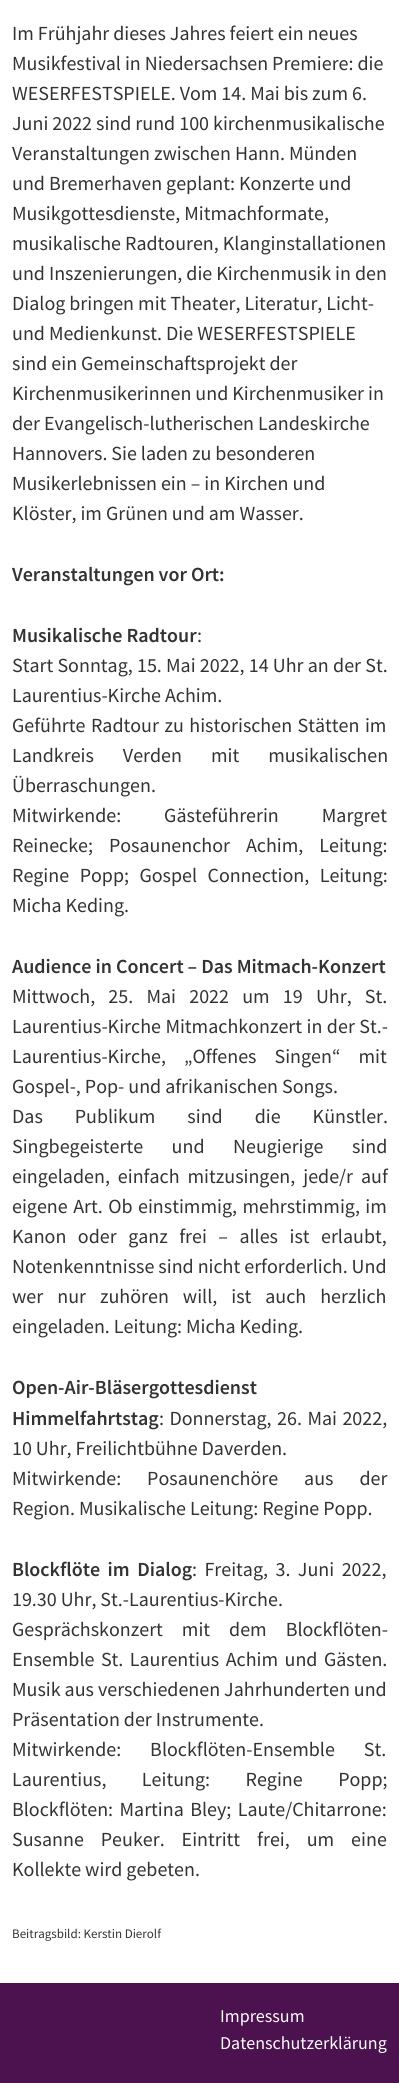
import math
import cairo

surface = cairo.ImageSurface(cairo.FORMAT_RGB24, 399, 2083)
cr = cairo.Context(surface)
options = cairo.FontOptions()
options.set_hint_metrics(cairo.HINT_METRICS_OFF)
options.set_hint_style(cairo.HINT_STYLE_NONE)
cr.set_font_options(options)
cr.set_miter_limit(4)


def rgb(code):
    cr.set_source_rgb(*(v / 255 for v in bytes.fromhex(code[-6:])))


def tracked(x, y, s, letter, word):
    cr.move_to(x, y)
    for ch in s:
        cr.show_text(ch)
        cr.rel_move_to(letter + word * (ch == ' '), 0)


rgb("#ffffff")
cr.paint()
rgb("#4c114f")
cr.rectangle(0, 1983, 399, 100)
cr.fill()
cr.select_font_face("Source Sans Pro")
cr.set_font_size(20)
rgb("#333333")
for x, y, s in [
    (12, 40, "Im Frühjahr dieses Jahres feiert ein neues"),
    (12, 70, "Musikfestival in Niedersachsen Premiere: die"),
    (12, 100, "WESERFESTSPIELE. Vom 14. Mai bis zum 6."),
    (12, 130, "Juni 2022 sind rund 100 kirchenmusikalische"),
    (12, 160, "Veranstaltungen zwischen Hann. Münden"),
    (12, 190, "und Bremerhaven geplant: Konzerte und"),
    (12, 220, "Musikgottesdienste, Mitmachformate,"),
    (12, 250, "musikalische Radtouren, Klanginstallationen"),
    (12, 280, "und Inszenierungen, die Kirchenmusik in den"),
    (12, 310, "Dialog bringen mit Theater, Literatur, Licht-"),
    (12, 340, "und Medienkunst. Die WESERFESTSPIELE"),
    (12, 370, "sind ein Gemeinschaftsprojekt der"),
    (12, 400, "Kirchenmusikerinnen und Kirchenmusiker in"),
    (12, 430, "der Evangelisch-lutherischen Landeskirche"),
    (12, 460, "Hannovers. Sie laden zu besonderen"),
    (12, 490, "Musikerlebnissen ein – in Kirchen und"),
    (12, 520, "Klöster, im Grünen und am Wasser."),
]:
    cr.move_to(x, y)
    cr.show_text(s)
cr.select_font_face("Source Sans Pro SemiBold")
cr.move_to(12, 581)
cr.show_text("Veranstaltungen vor Ort:")
cr.move_to(12, 642)
cr.show_text("Musikalische Radtour")
cr.select_font_face("Source Sans Pro")
cr.move_to(197, 642)
cr.show_text(":")
tracked(12, 672, "Start Sonntag, 15. Mai 2022, 14 Uhr an der St.", 0, 0.25)
cr.move_to(12, 702)
cr.show_text("Laurentius-Kirche Achim.")
tracked(12, 732, "Geführte Radtour zu historischen Stätten im", 0, 1.5)
tracked(12, 762, "Landkreis Verden mit musikalischen", 0, 25)
cr.move_to(12, 792)
cr.show_text("Überraschungen.")
tracked(12, 822, "Mitwirkende: Gästeführerin Margret", 0, 39)
tracked(12, 852, "Reinecke; Posaunenchor Achim, Leitung:", 0, 12)
tracked(12, 882, "Regine Popp; Gospel Connection, Leitung:", 0, 6.5)
cr.move_to(12, 912)
cr.show_text("Micha Keding.")
cr.select_font_face("Source Sans Pro SemiBold")
cr.move_to(12, 973)
cr.show_text("Audience in Concert – Das Mitmach-Konzert")
cr.select_font_face("Source Sans Pro")
tracked(12, 1003, "Mittwoch, 25. Mai 2022 um 19 Uhr, St.", 0, 9.25)
tracked(12, 1033, "Laurentius-Kirche Mitmachkonzert in der St.-", 0, 0.5)
tracked(12, 1063, "Laurentius-Kirche, „Offenes Singen“ mit", 0, 14)
cr.move_to(12, 1093)
cr.show_text("Gospel-, Pop- und afrikanischen Songs.")
tracked(12, 1123, "Das Publikum sind die Künstler.", 0, 28)
tracked(12, 1153, "Singbegeisterte und Neugierige sind", 0, 24.5)
tracked(12, 1183, "eingeladen, einfach mitzusingen, jede/r auf", 0, 4)
tracked(12, 1213, "eigene Art. Ob einstimmig, mehrstimmig, im", 0, 1.5)
tracked(12, 1243, "Kanon oder ganz frei – alles ist erlaubt,", 0, 7.5)
cr.move_to(12, 1273)
cr.show_text("Notenkenntnisse sind nicht erforderlich. Und")
tracked(12, 1303, "wer nur zuhören will, ist auch herzlich", 0, 10)
cr.move_to(12, 1333)
cr.show_text("eingeladen. Leitung: Micha Keding.")
cr.select_font_face("Source Sans Pro SemiBold")
cr.move_to(12, 1394)
cr.show_text("Open-Air-Bläsergottesdienst")
cr.move_to(12, 1425)
cr.show_text("Himmelfahrtstag")
cr.select_font_face("Source Sans Pro")
tracked(159, 1425, ": Donnerstag, 26. Mai 2022,", 0, 1.5)
cr.move_to(12, 1455)
cr.show_text("10 Uhr, Freilichtbühne Daverden.")
tracked(12, 1485, "Mitwirkende: Posaunenchöre aus der", 0, 22)
cr.move_to(12, 1515)
cr.show_text("Region. Musikalische Leitung: Regine Popp.")
cr.select_font_face("Source Sans Pro SemiBold")
tracked(12, 1576, "Blockflöte im Dialog", 0, 3.5)
cr.select_font_face("Source Sans Pro")
tracked(192, 1576, ": Freitag, 3. Juni 2022,", 0, 3.5)
cr.move_to(12, 1606)
cr.show_text("19.30 Uhr, St.-Laurentius-Kirche.")
tracked(12, 1636, "Gesprächskonzert mit dem Blockflöten-", 0, 15)
tracked(12, 1666, "Ensemble St. Laurentius Achim und Gästen.", 0, 2.5)
cr.move_to(12, 1696)
cr.show_text("Musik aus verschiedenen Jahrhunderten und")
cr.move_to(12, 1726)
cr.show_text("Präsentation der Instrumente.")
tracked(12, 1756, "Mitwirkende: Blockflöten-Ensemble St.", 0, 25)
tracked(12, 1786, "Laurentius, Leitung: Regine Popp;", 0, 31.5)
tracked(12, 1816, "Blockflöten: Martina Bley; Laute/Chitarrone:", 0, 2.5)
tracked(12, 1846, "Susanne Peuker. Eintritt frei, um eine", 0, 13)
cr.move_to(12, 1876)
cr.show_text("Kollekte wird gebeten.")
cr.set_font_size(13)
cr.move_to(12, 1938)
cr.show_text("Beitragsbild: Kerstin Dierolf")
cr.set_font_size(18)
rgb("#ffffff")
cr.move_to(220, 2022)
cr.show_text("Impressum")
cr.move_to(220, 2049)
cr.show_text("Datenschutzerklärung")
surface.write_to_png("page.png")
